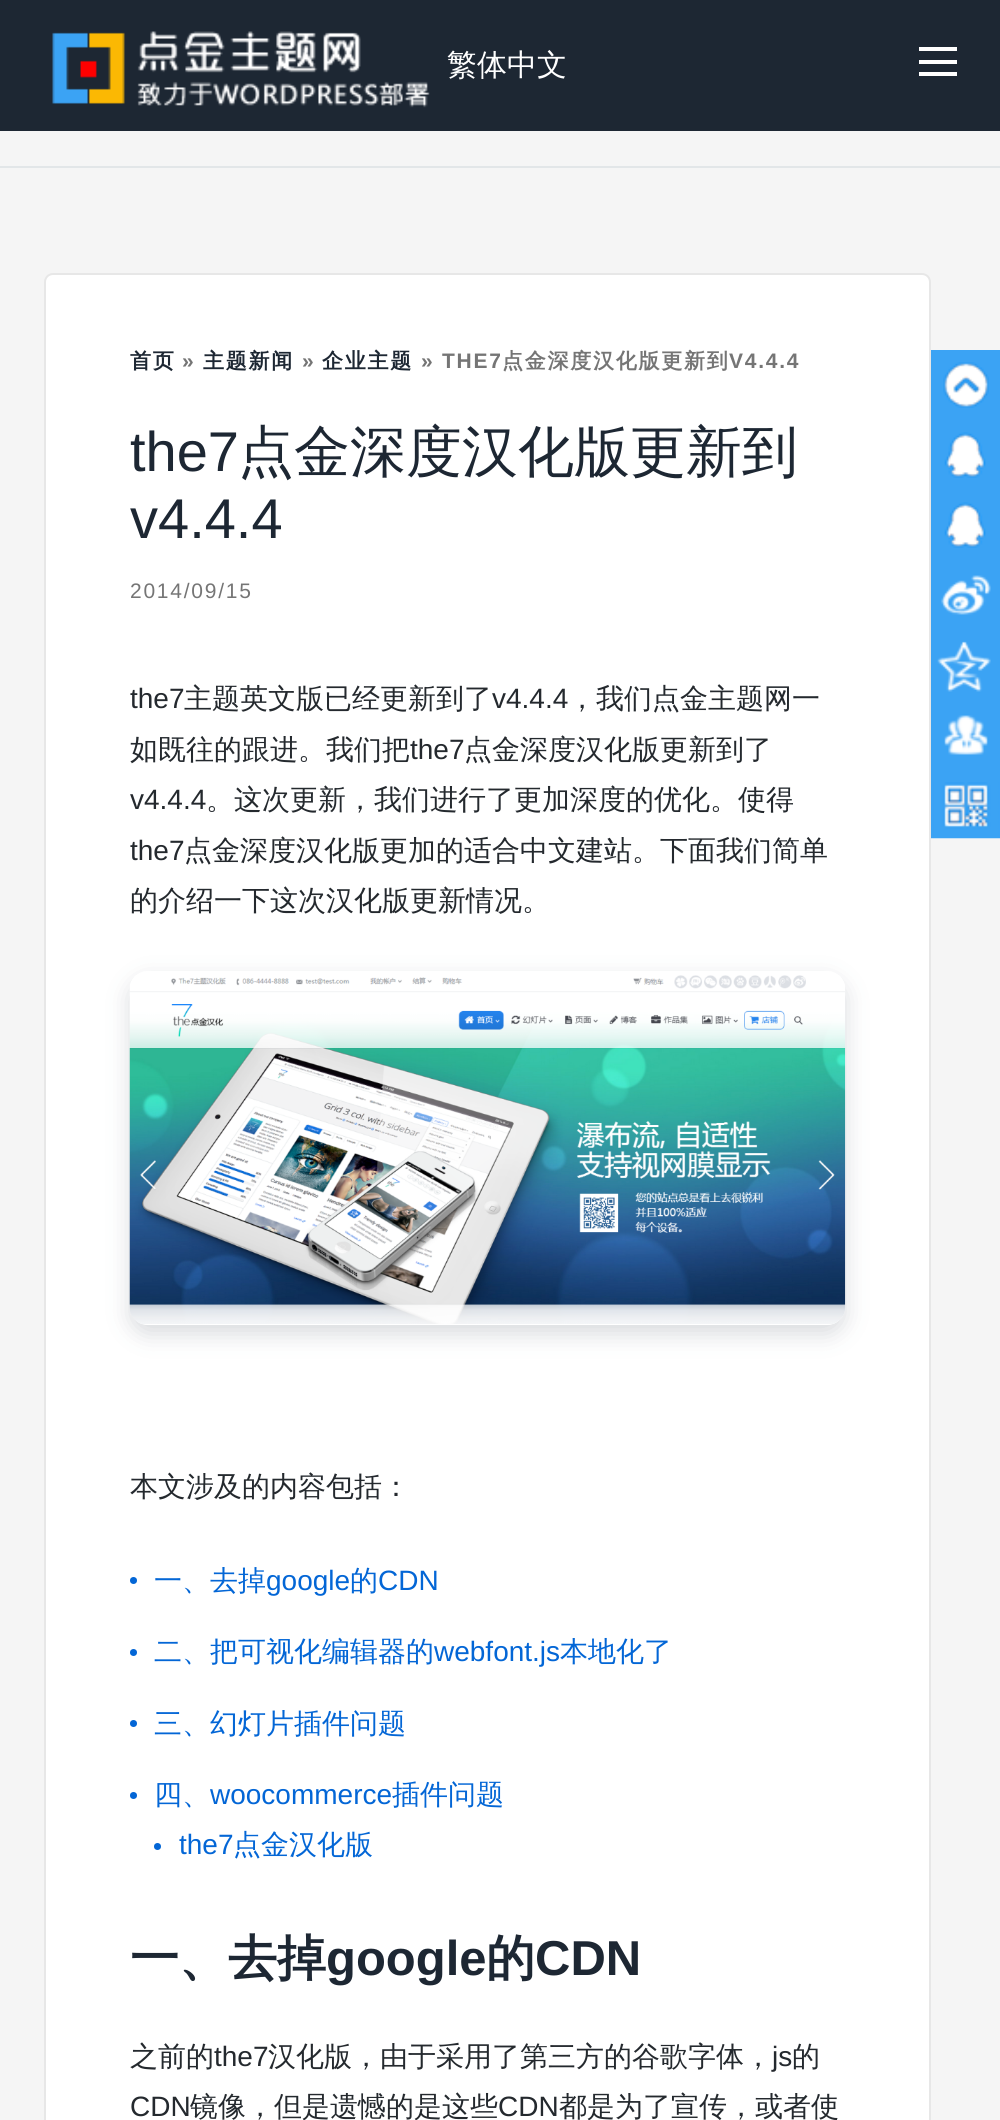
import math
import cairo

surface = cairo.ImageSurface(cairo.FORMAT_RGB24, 1000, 2120)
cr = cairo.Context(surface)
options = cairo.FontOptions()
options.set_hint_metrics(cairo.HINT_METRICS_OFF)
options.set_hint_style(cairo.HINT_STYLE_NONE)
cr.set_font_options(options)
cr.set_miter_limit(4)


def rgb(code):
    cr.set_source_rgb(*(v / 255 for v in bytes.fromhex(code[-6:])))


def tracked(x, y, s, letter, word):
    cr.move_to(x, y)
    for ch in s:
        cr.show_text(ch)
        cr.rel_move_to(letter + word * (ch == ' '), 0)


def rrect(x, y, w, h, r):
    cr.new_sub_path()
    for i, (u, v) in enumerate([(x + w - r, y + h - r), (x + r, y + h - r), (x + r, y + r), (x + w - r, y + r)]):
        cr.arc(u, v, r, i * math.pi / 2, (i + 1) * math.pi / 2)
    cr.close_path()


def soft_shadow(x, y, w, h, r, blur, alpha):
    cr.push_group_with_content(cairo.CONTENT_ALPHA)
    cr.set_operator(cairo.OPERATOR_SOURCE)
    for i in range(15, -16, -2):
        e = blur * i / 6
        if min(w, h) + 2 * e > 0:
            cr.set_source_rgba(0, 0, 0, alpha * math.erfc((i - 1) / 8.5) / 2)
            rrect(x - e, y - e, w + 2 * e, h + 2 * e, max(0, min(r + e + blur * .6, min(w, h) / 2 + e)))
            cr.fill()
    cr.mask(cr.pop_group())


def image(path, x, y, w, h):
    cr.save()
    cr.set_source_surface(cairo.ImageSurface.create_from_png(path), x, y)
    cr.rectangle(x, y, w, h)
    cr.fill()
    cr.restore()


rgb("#f5f5f5")
cr.paint()
rgb("#1d2733")
cr.rectangle(0, 0, 1000, 131)
cr.fill()
image("img/1.png", 52, 31, 378, 77)
for x, y, w, h, color in [
    (919, 60, 38, 4, "#ffffff"),
    (919, 47, 38, 4, "#ffffff"),
    (919, 72, 38, 4, "#ffffff"),
    (0, 166, 1000, 2, "#e2e6e8"),
]:
    rgb(color)
    cr.rectangle(x, y, w, h)
    cr.fill()
rgb("#ffffff")
rrect(45, 274, 885, 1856, 8)
cr.fill_preserve()
rgb("#e7e7e7")
cr.stroke()
cr.save()
cr.set_fill_rule(cairo.FILL_RULE_EVEN_ODD)
cr.new_path()
cr.move_to(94, 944)
cr.line_to(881, 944)
cr.line_to(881, 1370)
cr.line_to(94, 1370)
cr.close_path()
cr.move_to(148, 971)
cr.line_to(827, 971)
cr.curve_to(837, 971, 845, 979, 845, 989)
cr.line_to(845, 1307)
cr.curve_to(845, 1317, 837, 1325, 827, 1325)
cr.line_to(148, 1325)
cr.curve_to(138, 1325, 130, 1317, 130, 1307)
cr.line_to(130, 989)
cr.curve_to(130, 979, 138, 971, 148, 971)
cr.close_path()
cr.clip()
rgb("#3c4858")
soft_shadow(130, 980, 715, 354, 18, 11.5, 0.2)
cr.restore()
image("img/2.png", 129, 975, 717, 349)
rgb("#0366d6")
cr.arc(133.5, 1580.5, 3.5, 0, 2 * math.pi)
cr.fill()
cr.arc(133.5, 1652.5, 3.5, 0, 2 * math.pi)
cr.fill()
cr.arc(133.5, 1723.5, 3.5, 0, 2 * math.pi)
cr.fill()
cr.arc(133.5, 1795.5, 3.5, 0, 2 * math.pi)
cr.fill()
cr.arc(157.5, 1846.5, 3.5, 0, 2 * math.pi)
cr.fill()
rgb("#3ba3f4")
cr.rectangle(931, 350, 69, 488)
cr.fill()
image("img/3.png", 943, 362, 46, 46)
image("img/4.png", 944, 432, 42, 46)
image("img/4.png", 944, 502, 42, 46)
image("img/5.png", 941, 575, 50, 40)
image("img/6.png", 937, 641, 54, 51)
image("img/7.png", 944, 715, 44, 40)
image("img/8.png", 931, 782, 69, 57)
cr.select_font_face("WenQuanYi Zen Hei Medium")
cr.set_font_size(30)
rgb("#ffffff")
cr.move_to(447, 75)
cr.show_text("繁体中文")
cr.select_font_face("WenQuanYi Zen Hei", cairo.FONT_SLANT_NORMAL, cairo.FONT_WEIGHT_BOLD)
cr.set_font_size(21)
rgb("#1d2733")
tracked(130, 368, "首页", 1.75, 0)
cr.select_font_face("Liberation Sans", cairo.FONT_SLANT_NORMAL, cairo.FONT_WEIGHT_BOLD)
rgb("#757575")
tracked(182, 368, "»", 1.75, 0)
cr.select_font_face("WenQuanYi Zen Hei", cairo.FONT_SLANT_NORMAL, cairo.FONT_WEIGHT_BOLD)
rgb("#1d2733")
tracked(203, 368, "主题新闻", 1.75, 0)
cr.select_font_face("Liberation Sans", cairo.FONT_SLANT_NORMAL, cairo.FONT_WEIGHT_BOLD)
rgb("#757575")
tracked(302, 368, "»", 1.75, 0)
cr.select_font_face("WenQuanYi Zen Hei", cairo.FONT_SLANT_NORMAL, cairo.FONT_WEIGHT_BOLD)
rgb("#1d2733")
tracked(322, 368, "企业主题", 1.75, 0)
cr.select_font_face("Liberation Sans", cairo.FONT_SLANT_NORMAL, cairo.FONT_WEIGHT_BOLD)
rgb("#757575")
tracked(421, 368, "» THE7", 1.75, 0)
cr.select_font_face("WenQuanYi Zen Hei", cairo.FONT_SLANT_NORMAL, cairo.FONT_WEIGHT_BOLD)
tracked(502, 368, "点金深度汉化版更新到", 1.75, 0)
cr.select_font_face("Liberation Sans", cairo.FONT_SLANT_NORMAL, cairo.FONT_WEIGHT_BOLD)
tracked(729, 368, "V4.4.4", 1.75, 0)
cr.select_font_face("Liberation Sans")
cr.set_font_size(56)
rgb("#1d2733")
cr.move_to(130, 471)
cr.show_text("the7")
cr.select_font_face("WenQuanYi Zen Hei Medium")
cr.move_to(238, 471)
cr.show_text("点金深度汉化版更新到")
cr.select_font_face("Liberation Sans")
cr.move_to(130, 538)
cr.show_text("v4.4.4")
cr.set_font_size(21)
rgb("#757575")
tracked(130, 598, "2014/09/15", 1.75, 0)
cr.set_font_size(28)
rgb("#24292e")
cr.move_to(130, 708)
cr.show_text("the7")
cr.select_font_face("WenQuanYi Zen Hei Medium")
cr.move_to(184, 708)
cr.show_text("主题英文版已经更新到了")
cr.select_font_face("Liberation Sans")
cr.move_to(492, 708)
cr.show_text("v4.4.4")
cr.select_font_face("WenQuanYi Zen Hei Medium")
cr.move_to(568, 708)
cr.show_text("，我们点金主题网一")
cr.move_to(130, 759)
cr.show_text("如既往的跟进。我们把")
cr.select_font_face("Liberation Sans")
cr.move_to(410, 759)
cr.show_text("the7")
cr.select_font_face("WenQuanYi Zen Hei Medium")
cr.move_to(464, 759)
cr.show_text("点金深度汉化版更新到了")
cr.select_font_face("Liberation Sans")
cr.move_to(130, 809)
cr.show_text("v4.4.4")
cr.select_font_face("WenQuanYi Zen Hei Medium")
cr.move_to(206, 809)
cr.show_text("。这次更新，我们进行了更加深度的优化。使得")
cr.select_font_face("Liberation Sans")
cr.move_to(130, 860)
cr.show_text("the7")
cr.select_font_face("WenQuanYi Zen Hei Medium")
for x, y, s in [
    (184, 860, "点金深度汉化版更加的适合中文建站。下面我们简单"),
    (130, 910, "的介绍一下这次汉化版更新情况。"),
    (130, 1496, "本文涉及的内容包括："),
]:
    cr.move_to(x, y)
    cr.show_text(s)
rgb("#0366d6")
cr.move_to(154, 1590)
cr.show_text("一、去掉")
cr.select_font_face("Liberation Sans")
cr.move_to(266, 1590)
cr.show_text("google")
cr.select_font_face("WenQuanYi Zen Hei Medium")
cr.move_to(350, 1590)
cr.show_text("的")
cr.select_font_face("Liberation Sans")
cr.move_to(378, 1590)
cr.show_text("CDN")
cr.select_font_face("WenQuanYi Zen Hei Medium")
cr.move_to(154, 1661)
cr.show_text("二、把可视化编辑器的")
cr.select_font_face("Liberation Sans")
cr.move_to(434, 1661)
cr.show_text("webfont.js")
cr.select_font_face("WenQuanYi Zen Hei Medium")
for x, y, s in [
    (560, 1661, "本地化了"),
    (154, 1733, "三、幻灯片插件问题"),
    (154, 1804, "四、"),
]:
    cr.move_to(x, y)
    cr.show_text(s)
cr.select_font_face("Liberation Sans")
cr.move_to(210, 1804)
cr.show_text("woocommerce")
cr.select_font_face("WenQuanYi Zen Hei Medium")
cr.move_to(392, 1804)
cr.show_text("插件问题")
cr.select_font_face("Liberation Sans")
cr.move_to(179, 1854)
cr.show_text("the7")
cr.select_font_face("WenQuanYi Zen Hei Medium")
cr.move_to(233, 1854)
cr.show_text("点金汉化版")
cr.select_font_face("WenQuanYi Zen Hei", cairo.FONT_SLANT_NORMAL, cairo.FONT_WEIGHT_BOLD)
cr.set_font_size(49)
rgb("#1d2733")
cr.move_to(130, 1975)
cr.show_text("一、去掉")
cr.select_font_face("Liberation Sans", cairo.FONT_SLANT_NORMAL, cairo.FONT_WEIGHT_BOLD)
cr.move_to(326, 1975)
cr.show_text("google")
cr.select_font_face("WenQuanYi Zen Hei", cairo.FONT_SLANT_NORMAL, cairo.FONT_WEIGHT_BOLD)
cr.move_to(486, 1975)
cr.show_text("的")
cr.select_font_face("Liberation Sans", cairo.FONT_SLANT_NORMAL, cairo.FONT_WEIGHT_BOLD)
cr.move_to(535, 1975)
cr.show_text("CDN")
cr.select_font_face("WenQuanYi Zen Hei Medium")
cr.set_font_size(28)
rgb("#24292e")
cr.move_to(130, 2066)
cr.show_text("之前的")
cr.select_font_face("Liberation Sans")
cr.move_to(214, 2066)
cr.show_text("the7")
cr.select_font_face("WenQuanYi Zen Hei Medium")
cr.move_to(268, 2066)
cr.show_text("汉化版，由于采用了第三方的谷歌字体，")
cr.select_font_face("Liberation Sans")
cr.move_to(772, 2066)
cr.show_text("js")
cr.select_font_face("WenQuanYi Zen Hei Medium")
cr.move_to(792, 2066)
cr.show_text("的")
cr.select_font_face("Liberation Sans")
cr.move_to(130, 2116)
cr.show_text("CDN")
cr.select_font_face("WenQuanYi Zen Hei Medium")
cr.move_to(190, 2116)
cr.show_text("镜像，但是遗憾的是这些")
cr.select_font_face("Liberation Sans")
cr.move_to(498, 2116)
cr.show_text("CDN")
cr.select_font_face("WenQuanYi Zen Hei Medium")
cr.move_to(559, 2116)
cr.show_text("都是为了宣传，或者使")
surface.write_to_png("page.png")
